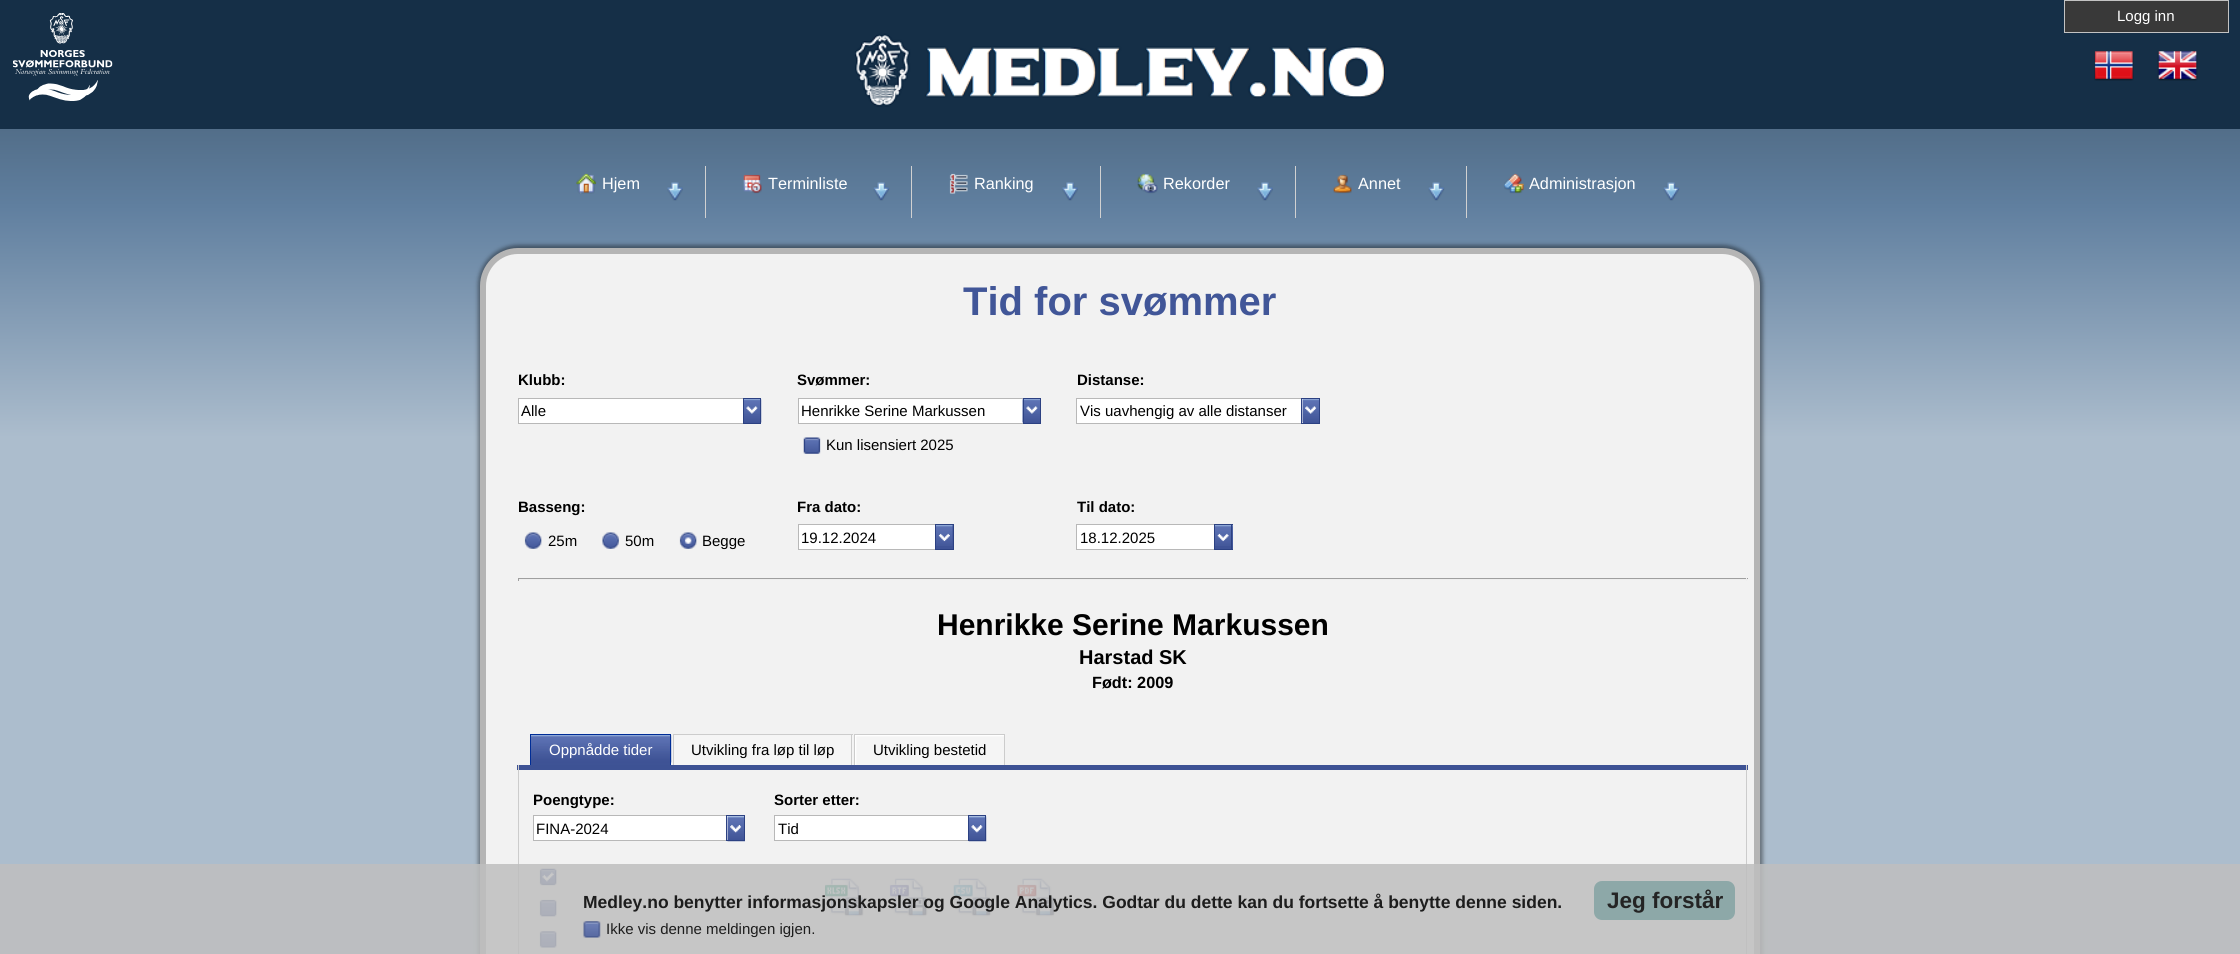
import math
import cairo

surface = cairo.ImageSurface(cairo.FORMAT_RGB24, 2240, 954)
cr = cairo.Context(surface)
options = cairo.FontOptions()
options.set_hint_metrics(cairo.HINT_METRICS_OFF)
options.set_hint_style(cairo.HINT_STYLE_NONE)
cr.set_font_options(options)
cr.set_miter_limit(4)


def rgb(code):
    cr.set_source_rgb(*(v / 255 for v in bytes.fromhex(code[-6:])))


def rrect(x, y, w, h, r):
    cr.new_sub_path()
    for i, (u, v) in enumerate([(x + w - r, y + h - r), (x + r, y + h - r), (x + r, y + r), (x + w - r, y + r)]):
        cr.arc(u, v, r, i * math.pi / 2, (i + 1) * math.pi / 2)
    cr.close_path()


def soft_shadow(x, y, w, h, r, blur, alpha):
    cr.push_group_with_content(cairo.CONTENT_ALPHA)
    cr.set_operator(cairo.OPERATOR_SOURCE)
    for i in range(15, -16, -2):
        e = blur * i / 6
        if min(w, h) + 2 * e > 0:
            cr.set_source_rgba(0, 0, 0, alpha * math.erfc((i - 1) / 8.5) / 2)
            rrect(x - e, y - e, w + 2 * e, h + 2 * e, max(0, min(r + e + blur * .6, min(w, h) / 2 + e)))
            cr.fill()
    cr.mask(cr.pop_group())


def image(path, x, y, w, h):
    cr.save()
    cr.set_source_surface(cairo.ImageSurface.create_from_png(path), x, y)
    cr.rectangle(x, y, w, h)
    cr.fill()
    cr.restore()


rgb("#152f47")
cr.paint()
image("img/1.png", 13, 13, 100, 88)
image("img/2.png", 855, 33, 530, 74)
rgb("#393939")
cr.rectangle(2064.5, 0.5, 164, 32)
cr.fill_preserve()
rgb("#c3c3c3")
cr.set_line_width(1)
cr.stroke()
image("img/3.png", 2094, 51, 40, 30)
image("img/4.png", 2157, 51, 41, 30)
gradient = cairo.LinearGradient(1120, 129, 1120, 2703)
gradient.add_color_stop_rgba(0, 0.322, 0.431, 0.537, 1)
gradient.add_color_stop_rgba(0.03, 0.376, 0.498, 0.624, 1)
gradient.add_color_stop_rgba(0.12, 0.675, 0.741, 0.804, 1)
cr.set_source(gradient)
cr.rectangle(0, 129, 2240, 825)
cr.fill()
image("img/5.png", 576, 173, 21, 21)
image("img/6.png", 667, 182, 16, 19)
rgb("#d1d1d1")
cr.rectangle(705, 166, 1, 52)
cr.fill()
image("img/7.png", 743, 174, 19, 20)
image("img/8.png", 873, 182, 17, 19)
cr.rectangle(911, 166, 1, 52)
cr.fill()
image("img/9.png", 949, 173, 19, 21)
image("img/6.png", 1062, 182, 16, 19)
cr.rectangle(1100, 166, 1, 52)
cr.fill()
image("img/10.png", 1137, 174, 21, 20)
image("img/11.png", 1257, 182, 16, 19)
cr.rectangle(1295, 166, 1, 52)
cr.fill()
image("img/12.png", 1333, 174, 19, 20)
image("img/8.png", 1428, 182, 17, 19)
cr.rectangle(1466, 166, 1, 52)
cr.fill()
image("img/13.png", 1504, 173, 20, 21)
image("img/8.png", 1663, 182, 17, 19)
rgb("#000000")
soft_shadow(478, 245, 1285, 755, 40, 2, 0.4)
rgb("#f2f2f2")
rrect(483, 251, 1274, 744, 35)
cr.fill_preserve()
rgb("#b5b5b5")
cr.set_line_width(6)
cr.stroke()
for x, y, w, h, color in [
    (519, 399, 224, 24, "#ffffff"),
    (518, 398, 225, 1, "#b8b8b8"),
    (518, 423, 225, 1, "#b8b8b8"),
    (518, 398, 1, 26, "#b8b8b8"),
    (744, 422, 16, 1, "#3f5396"),
]:
    rgb(color)
    cr.rectangle(x, y, w, h)
    cr.fill()
image("img/14.png", 744, 398, 18, 25)
for x, y, w, h, color in [
    (743, 398, 18, 1, "#2c4182"),
    (760, 398, 1, 26, "#2c4182"),
    (743, 423, 18, 1, "#2c4182"),
    (743, 398, 1, 26, "#2c4182"),
]:
    rgb(color)
    cr.rectangle(x, y, w, h)
    cr.fill()
image("img/15.png", 746, 406, 12, 8)
for x, y, w, h, color in [
    (799, 399, 224, 24, "#ffffff"),
    (798, 398, 225, 1, "#b8b8b8"),
    (798, 423, 225, 1, "#b8b8b8"),
    (798, 398, 1, 26, "#b8b8b8"),
    (1024, 422, 16, 1, "#3f5396"),
]:
    rgb(color)
    cr.rectangle(x, y, w, h)
    cr.fill()
image("img/16.png", 1022, 399, 18, 24)
for x, y, w, h, color in [
    (1023, 398, 18, 1, "#2c4182"),
    (1040, 398, 1, 26, "#2c4182"),
    (1023, 423, 18, 1, "#2c4182"),
    (1023, 398, 1, 26, "#2c4182"),
]:
    rgb(color)
    cr.rectangle(x, y, w, h)
    cr.fill()
image("img/15.png", 1026, 406, 12, 8)
image("img/17.png", 803, 437, 18, 17)
for x, y, w, h, color in [
    (1077, 399, 226, 24, "#ffffff"),
    (1076, 398, 225, 1, "#b8b8b8"),
    (1076, 423, 225, 1, "#b8b8b8"),
    (1076, 398, 1, 26, "#b8b8b8"),
    (1303, 422, 16, 1, "#3f5396"),
]:
    rgb(color)
    cr.rectangle(x, y, w, h)
    cr.fill()
image("img/18.png", 1302, 399, 17, 24)
for x, y, w, h, color in [
    (1301, 398, 19, 1, "#2c4182"),
    (1319, 398, 1, 26, "#2c4182"),
    (1301, 423, 19, 1, "#2c4182"),
    (1301, 398, 1, 26, "#2c4182"),
]:
    rgb(color)
    cr.rectangle(x, y, w, h)
    cr.fill()
image("img/19.png", 1305, 406, 12, 8)
image("img/20.png", 524, 532, 18, 17)
image("img/21.png", 602, 532, 17, 17)
image("img/22.png", 679, 532, 18, 17)
for x, y, w, h, color in [
    (799, 525, 136, 24, "#ffffff"),
    (798, 524, 137, 1, "#b8b8b8"),
    (798, 549, 137, 1, "#b8b8b8"),
    (798, 524, 1, 26, "#b8b8b8"),
    (936, 525, 17, 24, "#3f5396"),
]:
    rgb(color)
    cr.rectangle(x, y, w, h)
    cr.fill()
image("img/23.png", 936, 525, 17, 21)
for x, y, w, h, color in [
    (935, 524, 19, 1, "#2c4182"),
    (953, 524, 1, 26, "#2c4182"),
    (935, 549, 19, 1, "#2c4182"),
    (935, 524, 1, 26, "#2c4182"),
]:
    rgb(color)
    cr.rectangle(x, y, w, h)
    cr.fill()
image("img/24.png", 938, 533, 12, 9)
for x, y, w, h, color in [
    (1077, 525, 137, 24, "#ffffff"),
    (1076, 524, 138, 1, "#b8b8b8"),
    (1076, 549, 138, 1, "#b8b8b8"),
    (1076, 524, 1, 26, "#b8b8b8"),
    (1215, 525, 18, 24, "#3f5396"),
]:
    rgb(color)
    cr.rectangle(x, y, w, h)
    cr.fill()
image("img/25.png", 1215, 525, 18, 21)
for x, y, w, h, color in [
    (1214, 524, 19, 1, "#2c4182"),
    (1231, 524, 1, 26, "#2c4182"),
    (1214, 549, 19, 1, "#2c4182"),
    (1214, 524, 1, 26, "#2c4182"),
]:
    rgb(color)
    cr.rectangle(x, y, w, h)
    cr.fill()
image("img/26.png", 1217, 533, 12, 9)
for x, y, w, h, color in [
    (518, 578, 1230, 1, "#9f9f9f"),
    (1746, 578, 1, 3, "#eeeeee"),
    (518, 579, 1230, 1, "#eeeeee"),
    (518, 578, 1, 3, "#9f9f9f"),
    (531, 762, 139, 3, "#3e5395"),
]:
    rgb(color)
    cr.rectangle(x, y, w, h)
    cr.fill()
image("img/27.png", 531, 735, 141, 28)
for x, y, w, h, color in [
    (530, 734, 141, 1, "#002d96"),
    (670, 734, 1, 31, "#002d96"),
    (530, 734, 1, 31, "#002d96"),
    (674, 735, 179, 30, "#f5f5f5"),
    (673, 734, 180, 1, "#cccccc"),
    (851, 734, 1, 31, "#cccccc"),
    (673, 734, 1, 31, "#cccccc"),
]:
    rgb(color)
    cr.rectangle(x, y, w, h)
    cr.fill()
image("img/28.png", 855, 735, 149, 30)
for x, y, w, h, color in [
    (854, 734, 151, 1, "#cccccc"),
    (1004, 734, 1, 31, "#cccccc"),
    (854, 734, 1, 31, "#cccccc"),
    (517, 765, 1231, 5, "#3d5294"),
    (1746, 765, 1, 189, "#cccccc"),
    (518, 765, 1, 189, "#cccccc"),
    (534, 816, 210, 24, "#ffffff"),
    (533, 815, 193, 1, "#b8b8b8"),
    (533, 840, 193, 1, "#b8b8b8"),
    (533, 815, 1, 26, "#b8b8b8"),
]:
    rgb(color)
    cr.rectangle(x, y, w, h)
    cr.fill()
image("img/29.png", 727, 816, 18, 26)
for x, y, w, h, color in [
    (726, 815, 19, 1, "#2c4182"),
    (744, 815, 1, 26, "#2c4182"),
    (726, 840, 19, 1, "#2c4182"),
    (726, 815, 1, 26, "#2c4182"),
]:
    rgb(color)
    cr.rectangle(x, y, w, h)
    cr.fill()
image("img/30.png", 730, 825, 12, 8)
for x, y, w, h, color in [
    (775, 816, 210, 24, "#ffffff"),
    (774, 815, 194, 1, "#b8b8b8"),
    (774, 840, 194, 1, "#b8b8b8"),
    (774, 815, 1, 26, "#b8b8b8"),
]:
    rgb(color)
    cr.rectangle(x, y, w, h)
    cr.fill()
image("img/31.png", 968, 816, 19, 26)
for x, y, w, h, color in [
    (968, 815, 18, 1, "#2c4182"),
    (985, 815, 1, 26, "#2c4182"),
    (968, 840, 18, 1, "#2c4182"),
    (968, 815, 1, 26, "#2c4182"),
]:
    rgb(color)
    cr.rectangle(x, y, w, h)
    cr.fill()
image("img/32.png", 971, 825, 12, 8)
image("img/33.png", 539, 868, 18, 18)
image("img/34.png", 539, 899, 18, 18)
image("img/35.png", 539, 931, 18, 17)
image("img/36.png", 825, 878, 39, 39)
image("img/37.png", 889, 878, 39, 39)
image("img/38.png", 953, 878, 39, 39)
image("img/39.png", 1017, 878, 38, 39)
cr.set_source_rgba(0.745, 0.745, 0.745, 0.85)
cr.rectangle(0, 864, 2240, 90)
cr.fill()
image("img/40.png", 583, 921, 18, 17)
rgb("#8da8a8")
rrect(1594, 881, 141, 39, 8)
cr.fill()
cr.select_font_face("Liberation Sans")
cr.set_font_size(15)
rgb("#ffffff")
cr.move_to(2117, 21)
cr.show_text("Logg inn")
cr.set_font_size(16.25)
for x, y, s in [
    (602, 189, "Hjem"),
    (768, 189, "Terminliste"),
    (974, 189, "Ranking"),
    (1163, 189, "Rekorder"),
    (1358, 189, "Annet"),
    (1529, 189, "Administrasjon"),
]:
    cr.move_to(x, y)
    cr.show_text(s)
cr.select_font_face("Liberation Sans", cairo.FONT_SLANT_NORMAL, cairo.FONT_WEIGHT_BOLD)
cr.set_font_size(40)
rgb("#415698")
cr.move_to(963, 315)
cr.show_text("Tid for svømmer")
cr.set_font_size(15)
rgb("#000000")
cr.move_to(518, 385)
cr.show_text("Klubb:")
cr.select_font_face("Liberation Sans")
cr.move_to(521, 416)
cr.show_text("Alle")
cr.select_font_face("Liberation Sans", cairo.FONT_SLANT_NORMAL, cairo.FONT_WEIGHT_BOLD)
cr.move_to(797, 385)
cr.show_text("Svømmer:")
cr.select_font_face("Liberation Sans")
cr.move_to(801, 416)
cr.show_text("Henrikke Serine Markussen")
cr.move_to(826, 450)
cr.show_text("Kun lisensiert 2025")
cr.select_font_face("Liberation Sans", cairo.FONT_SLANT_NORMAL, cairo.FONT_WEIGHT_BOLD)
cr.move_to(1077, 385)
cr.show_text("Distanse:")
cr.select_font_face("Liberation Sans")
cr.move_to(1080, 416)
cr.show_text("Vis uavhengig av alle distanser")
cr.select_font_face("Liberation Sans", cairo.FONT_SLANT_NORMAL, cairo.FONT_WEIGHT_BOLD)
cr.move_to(518, 512)
cr.show_text("Basseng:")
cr.select_font_face("Liberation Sans")
for x, y, s in [
    (548, 546, "25m"),
    (625, 546, "50m"),
    (702, 546, "Begge"),
]:
    cr.move_to(x, y)
    cr.show_text(s)
cr.select_font_face("Liberation Sans", cairo.FONT_SLANT_NORMAL, cairo.FONT_WEIGHT_BOLD)
cr.move_to(797, 512)
cr.show_text("Fra dato:")
cr.select_font_face("Liberation Sans")
cr.move_to(801, 543)
cr.show_text("19.12.2024")
cr.select_font_face("Liberation Sans", cairo.FONT_SLANT_NORMAL, cairo.FONT_WEIGHT_BOLD)
cr.move_to(1077, 512)
cr.show_text("Til dato:")
cr.select_font_face("Liberation Sans")
cr.move_to(1080, 543)
cr.show_text("18.12.2025")
cr.select_font_face("Liberation Sans", cairo.FONT_SLANT_NORMAL, cairo.FONT_WEIGHT_BOLD)
cr.set_font_size(30)
cr.move_to(937, 635)
cr.show_text("Henrikke Serine Markussen")
cr.set_font_size(20)
cr.move_to(1079, 664)
cr.show_text("Harstad SK")
cr.set_font_size(16.25)
cr.move_to(1092, 688)
cr.show_text("Født: 2009")
cr.select_font_face("Liberation Sans")
cr.set_font_size(15)
rgb("#ffffff")
cr.move_to(549, 755)
cr.show_text("Oppnådde tider")
rgb("#000000")
cr.move_to(691, 755)
cr.show_text("Utvikling fra løp til løp")
cr.move_to(873, 755)
cr.show_text("Utvikling bestetid")
cr.select_font_face("Liberation Sans", cairo.FONT_SLANT_NORMAL, cairo.FONT_WEIGHT_BOLD)
cr.move_to(533, 805)
cr.show_text("Poengtype:")
cr.select_font_face("Liberation Sans")
cr.move_to(536, 834)
cr.show_text("FINA-2024")
cr.select_font_face("Liberation Sans", cairo.FONT_SLANT_NORMAL, cairo.FONT_WEIGHT_BOLD)
cr.move_to(774, 805)
cr.show_text("Sorter etter:")
cr.select_font_face("Liberation Sans")
cr.move_to(778, 834)
cr.show_text("Tid")
cr.select_font_face("Liberation Sans", cairo.FONT_SLANT_NORMAL, cairo.FONT_WEIGHT_BOLD)
cr.set_font_size(17.5)
rgb("#1d1d1d")
cr.move_to(583, 908)
cr.show_text("Medley.no benytter informasjonskapsler og Google Analytics. Godtar du dette kan du fortsette å benytte denne siden.")
cr.select_font_face("Liberation Sans")
cr.set_font_size(15)
cr.move_to(606, 934)
cr.show_text("Ikke vis denne meldingen igjen.")
cr.select_font_face("Liberation Sans", cairo.FONT_SLANT_NORMAL, cairo.FONT_WEIGHT_BOLD)
cr.set_font_size(22.5)
rgb("#242424")
cr.move_to(1607, 908)
cr.show_text("Jeg forstår")
surface.write_to_png("page.png")
